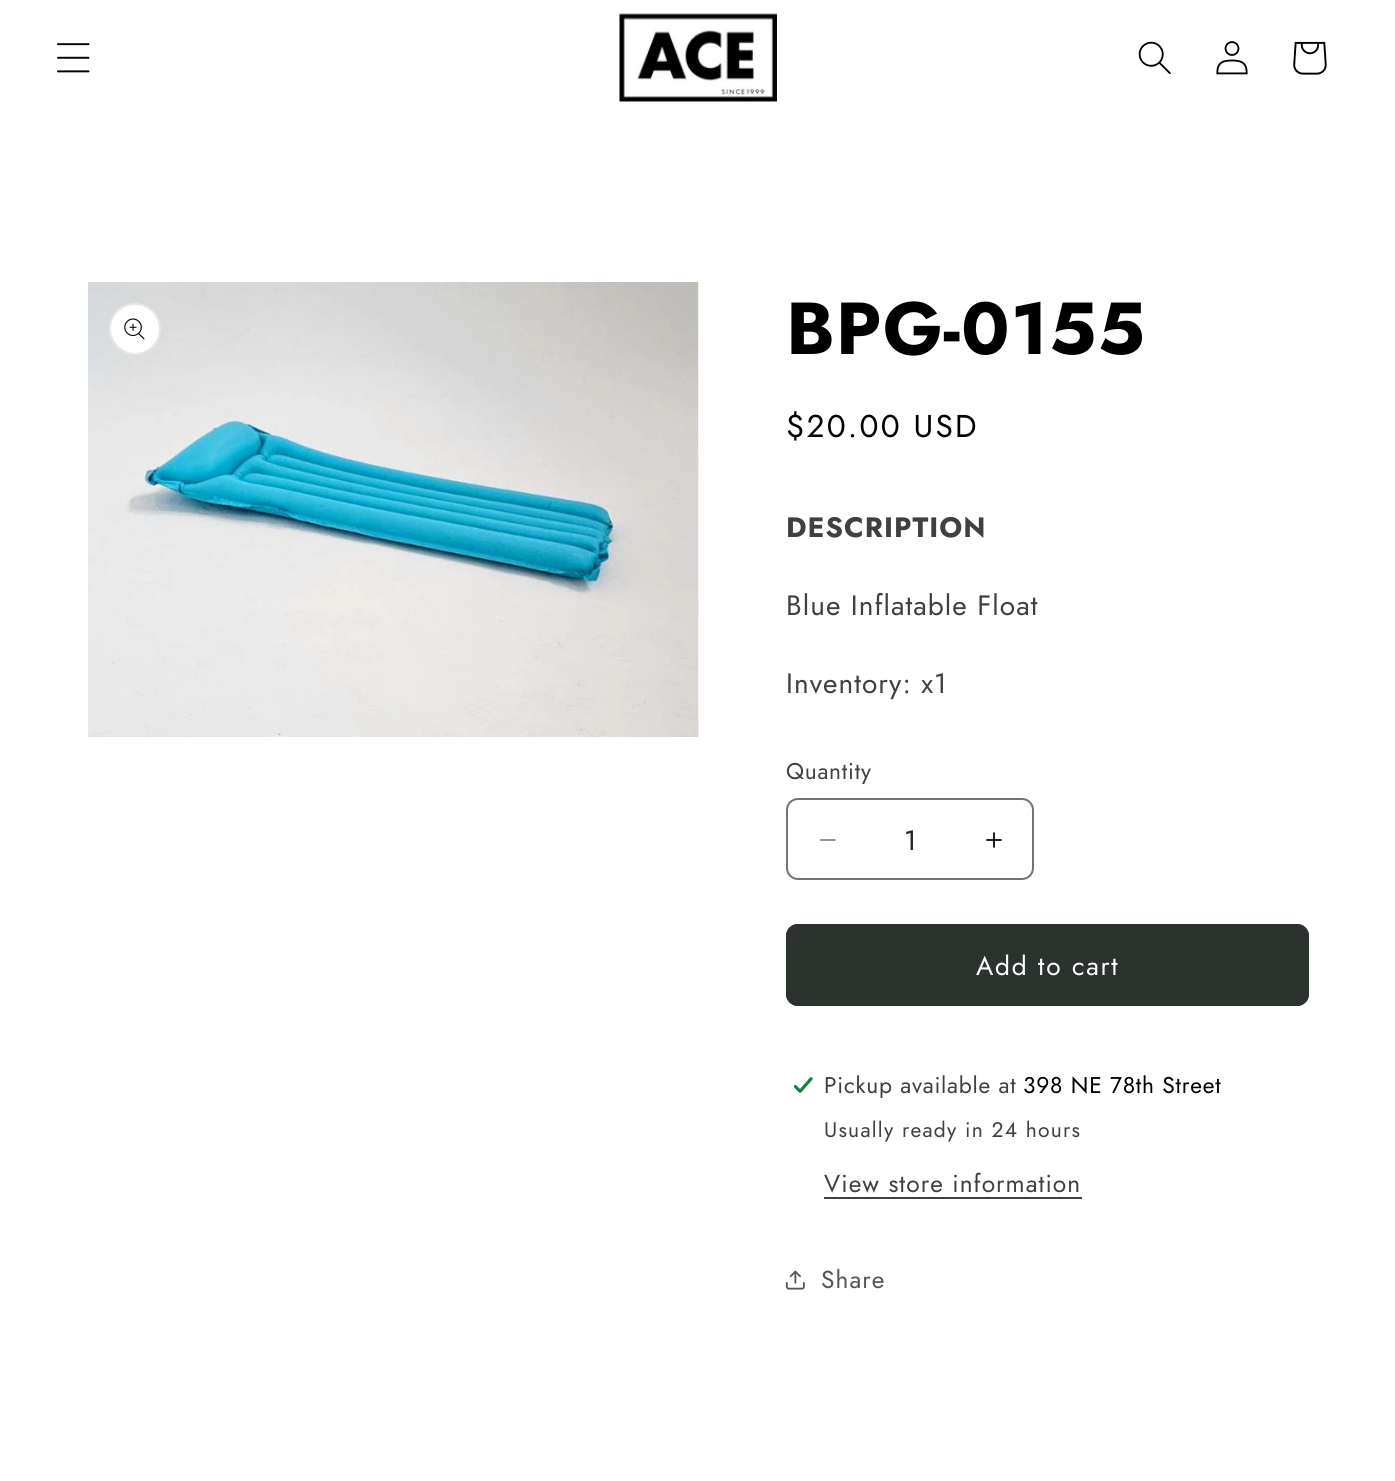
import math
import cairo

surface = cairo.ImageSurface(cairo.FORMAT_RGB24, 1395, 1481)
cr = cairo.Context(surface)
options = cairo.FontOptions()
options.set_hint_metrics(cairo.HINT_METRICS_OFF)
options.set_hint_style(cairo.HINT_STYLE_NONE)
cr.set_font_options(options)
cr.set_miter_limit(4)


def rgb(code):
    cr.set_source_rgb(*(v / 255 for v in bytes.fromhex(code[-6:])))


def tracked(x, y, s, letter, word):
    cr.move_to(x, y)
    for ch in s:
        cr.show_text(ch)
        cr.rel_move_to(letter + word * (ch == ' '), 0)


def rrect(x, y, w, h, r):
    cr.new_sub_path()
    for i, (u, v) in enumerate([(x + w - r, y + h - r), (x + r, y + h - r), (x + r, y + r), (x + w - r, y + r)]):
        cr.arc(u, v, r, i * math.pi / 2, (i + 1) * math.pi / 2)
    cr.close_path()


def image(path, x, y, w, h):
    cr.save()
    cr.set_source_surface(cairo.ImageSurface.create_from_png(path), x, y)
    cr.rectangle(x, y, w, h)
    cr.fill()
    cr.restore()


rgb("#ffffff")
cr.paint()
image("img/1.png", 57, 43, 33, 30)
image("img/2.png", 619, 13, 158, 89)
image("img/3.png", 1138, 41, 33, 34)
image("img/4.png", 1216, 41, 32, 34)
image("img/5.png", 1293, 41, 34, 34)
image("img/6.png", 88, 282, 611, 455)
rgb("#ffffff")
cr.arc(135, 329, 26, 0, 2 * math.pi)
cr.fill()
cr.arc(135, 329, 25, 0, 2 * math.pi)
cr.set_source_rgba(0, 0, 0, 0.1)
cr.stroke()
image("img/7.png", 124, 318, 21, 22)
image("img/8.png", 820, 839, 16, 2)
image("img/9.png", 986, 832, 16, 16)
rrect(787, 799, 246, 80, 11)
rgb("#737373")
cr.stroke()
rgb("#2c332f")
rrect(786, 924, 523, 82, 12)
cr.fill()
rrect(787, 925, 521, 80, 11)
cr.stroke()
image("img/10.png", 793, 1077, 20, 16)
rgb("#404040")
cr.rectangle(824, 1197, 258, 2)
cr.fill()
image("img/11.png", 785, 1270, 20, 20)
cr.select_font_face("Jost", cairo.FONT_SLANT_NORMAL, cairo.FONT_WEIGHT_BOLD)
cr.set_font_size(73.5)
rgb("#000000")
tracked(786, 354, "BPG-0155", 1.05, 0)
cr.select_font_face("Jost")
cr.set_font_size(31.5)
tracked(786, 437, "$20.00 USD", 2.25, 0)
cr.select_font_face("Jost", cairo.FONT_SLANT_NORMAL, cairo.FONT_WEIGHT_BOLD)
cr.set_font_size(28)
rgb("#404040")
tracked(786, 537, "DESCRIPTION", 1.05, 0)
cr.select_font_face("Jost")
tracked(786, 615, "Blue Inflatable Float", 1.05, 0)
tracked(786, 693, "Inventory: x1", 1.05, 0)
cr.set_font_size(22.75)
tracked(786, 779, "Quantity", 0.75, 0)
cr.set_font_size(28)
rgb("#262626")
cr.move_to(904, 850)
cr.show_text("1")
cr.set_font_size(26.25)
rgb("#ffffff")
tracked(976, 975, "Add to cart", 1.75, 0)
cr.set_font_size(22.75)
rgb("#404040")
tracked(824, 1093, "Pickup available at", 0.75, 0)
rgb("#000000")
tracked(1023, 1093, "398 NE 78th Street", 0.75, 0)
cr.set_font_size(21)
rgb("#404040")
tracked(824, 1137, "Usually ready in 24 hours", 1.25, 0)
cr.set_font_size(24.5)
tracked(824, 1192, "View store information", 1.05, 0)
rgb("#505655")
tracked(821, 1288, "Share", 1.05, 0)
surface.write_to_png("page.png")
